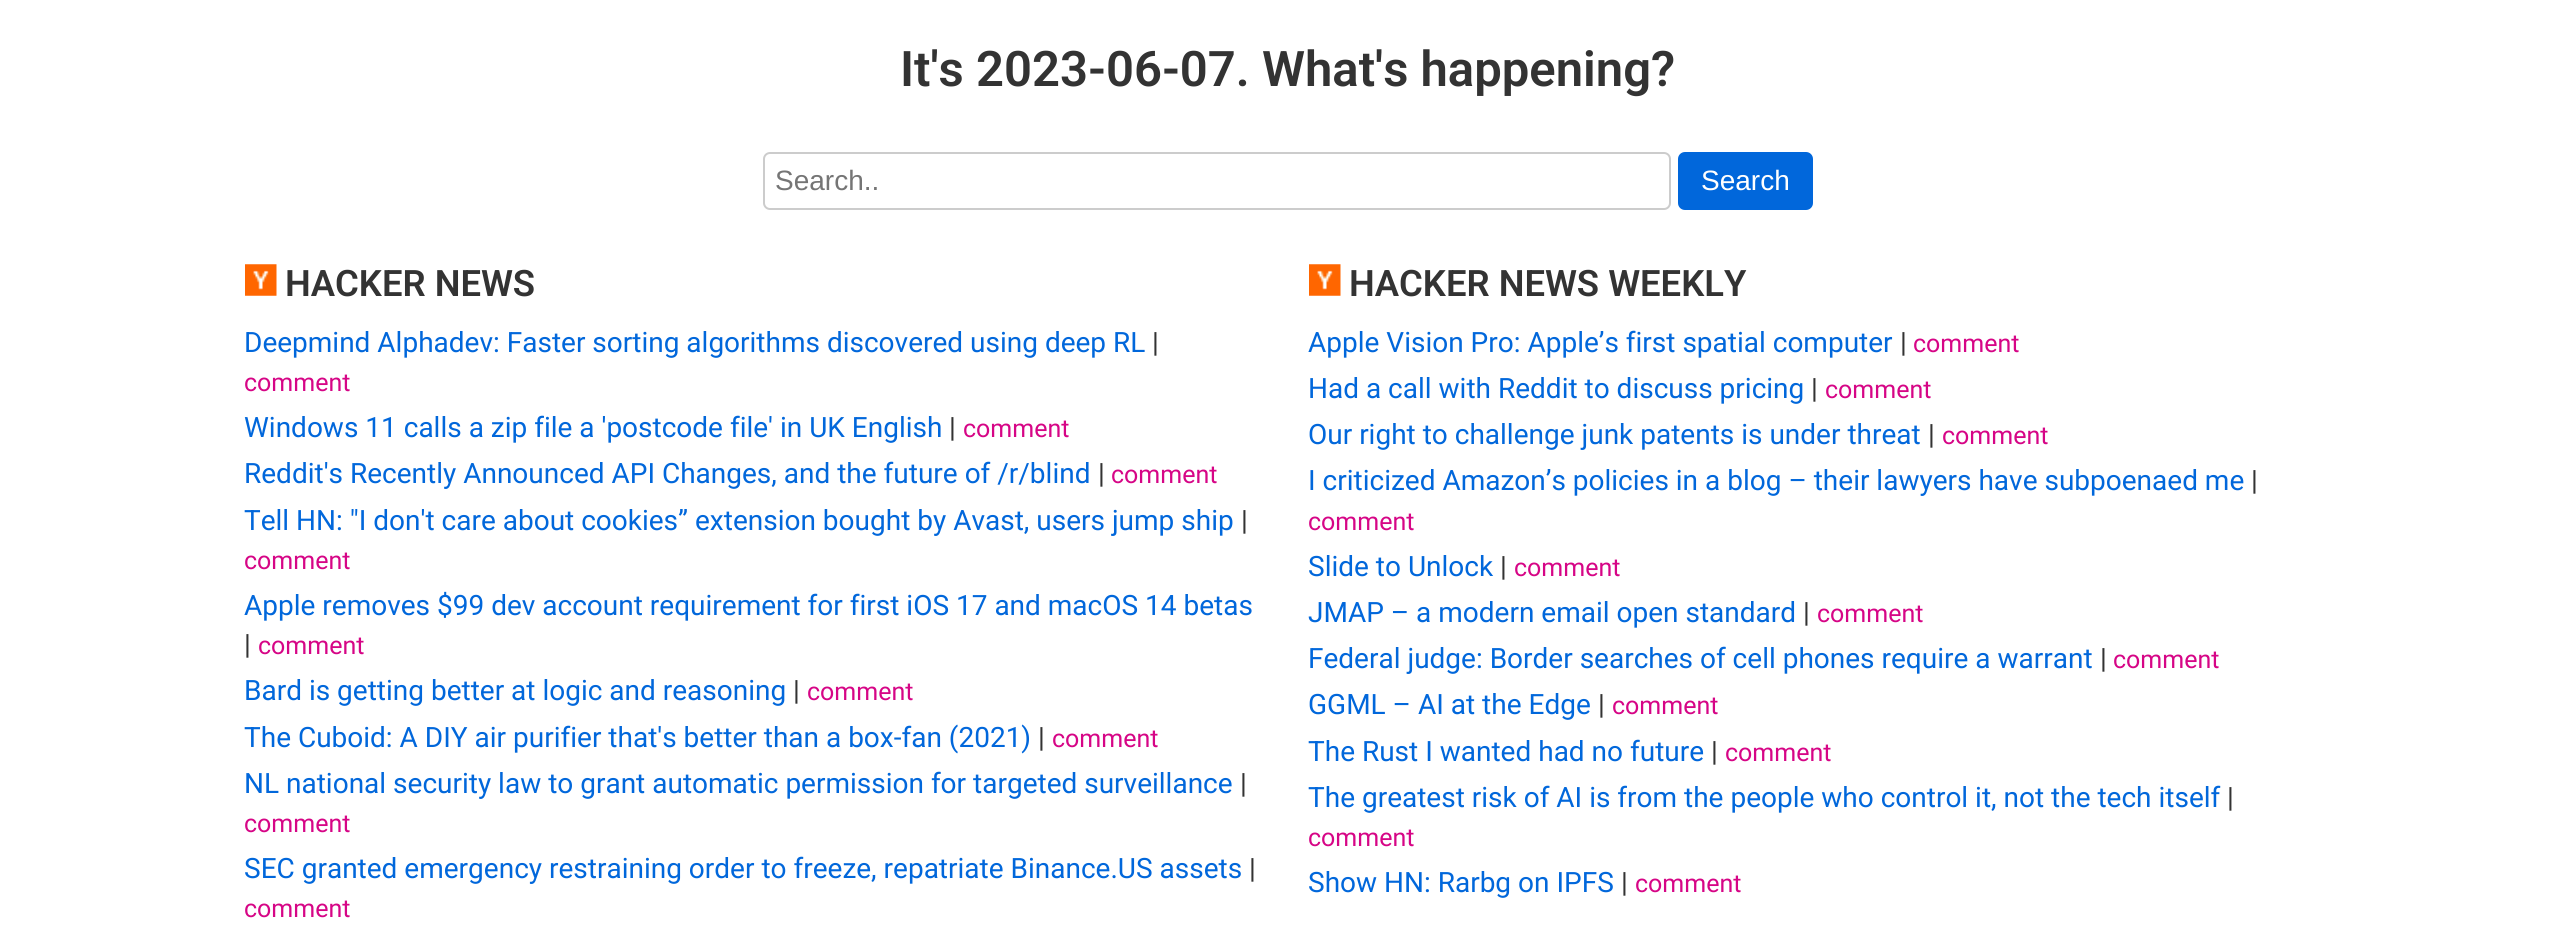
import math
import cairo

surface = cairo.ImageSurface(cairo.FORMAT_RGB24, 2574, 931)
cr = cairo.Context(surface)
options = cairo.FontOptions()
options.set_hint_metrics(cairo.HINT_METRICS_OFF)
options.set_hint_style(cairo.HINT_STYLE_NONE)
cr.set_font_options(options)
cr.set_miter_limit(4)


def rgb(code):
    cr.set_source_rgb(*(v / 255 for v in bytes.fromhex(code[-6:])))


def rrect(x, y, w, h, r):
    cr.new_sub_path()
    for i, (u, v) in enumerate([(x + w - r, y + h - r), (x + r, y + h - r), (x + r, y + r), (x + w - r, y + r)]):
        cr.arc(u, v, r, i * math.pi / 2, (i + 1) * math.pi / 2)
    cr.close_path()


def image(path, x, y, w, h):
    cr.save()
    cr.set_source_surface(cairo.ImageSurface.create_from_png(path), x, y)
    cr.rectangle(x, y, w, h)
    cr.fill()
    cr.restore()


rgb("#ffffff")
cr.paint()
rrect(764, 153, 906, 56, 6)
rgb("#cccccc")
cr.stroke()
rgb("#0167db")
rrect(1678, 152, 135, 58, 7)
cr.fill()
image("img/1.png", 245, 264, 32, 32)
image("img/1.png", 1309, 264, 32, 32)
cr.select_font_face("Roboto SemiBold")
cr.set_font_size(49)
rgb("#333333")
cr.move_to(900, 86)
cr.show_text("It's 2023-06-07. What's happening?")
cr.select_font_face("Liberation Sans")
cr.set_font_size(28)
rgb("#757575")
cr.move_to(775, 190)
cr.show_text("Search..")
rgb("#ffffff")
cr.move_to(1701, 190)
cr.show_text("Search")
cr.select_font_face("Roboto SemiBold")
cr.set_font_size(36.4)
rgb("#333333")
cr.move_to(285, 296)
cr.show_text("HACKER NEWS")
cr.select_font_face("Roboto")
cr.set_font_size(28)
rgb("#0167db")
cr.move_to(244, 352)
cr.show_text("Deepmind Alphadev: Faster sorting algorithms discovered using deep RL")
rgb("#333333")
cr.move_to(1152, 352)
cr.show_text("|")
cr.set_font_size(25)
rgb("#d60586")
cr.move_to(244, 391)
cr.show_text("comment")
cr.set_font_size(28)
rgb("#0167db")
cr.move_to(244, 437)
cr.show_text("Windows 11 calls a zip file a 'postcode file' in UK English")
rgb("#333333")
cr.move_to(949, 437)
cr.show_text("|")
cr.set_font_size(25)
rgb("#d60586")
cr.move_to(963, 437)
cr.show_text("comment")
cr.set_font_size(28)
rgb("#0167db")
cr.move_to(244, 483)
cr.show_text("Reddit's Recently Announced API Changes, and the future of /r/blind")
rgb("#333333")
cr.move_to(1098, 483)
cr.show_text("|")
cr.set_font_size(25)
rgb("#d60586")
cr.move_to(1111, 483)
cr.show_text("comment")
cr.set_font_size(28)
rgb("#0167db")
cr.move_to(244, 530)
cr.show_text("Tell HN: \"I don't care about cookies” extension bought by Avast, users jump ship")
rgb("#333333")
cr.move_to(1241, 530)
cr.show_text("|")
cr.set_font_size(25)
rgb("#d60586")
cr.move_to(244, 569)
cr.show_text("comment")
cr.set_font_size(28)
rgb("#0167db")
cr.move_to(244, 615)
cr.show_text("Apple removes $99 dev account requirement for first iOS 17 and macOS 14 betas")
rgb("#333333")
cr.move_to(244, 654)
cr.show_text("|")
cr.set_font_size(25)
rgb("#d60586")
cr.move_to(258, 654)
cr.show_text("comment")
cr.set_font_size(28)
rgb("#0167db")
cr.move_to(244, 700)
cr.show_text("Bard is getting better at logic and reasoning")
rgb("#333333")
cr.move_to(793, 700)
cr.show_text("|")
cr.set_font_size(25)
rgb("#d60586")
cr.move_to(807, 700)
cr.show_text("comment")
cr.set_font_size(28)
rgb("#0167db")
cr.move_to(244, 747)
cr.show_text("The Cuboid: A DIY air purifier that's better than a box-fan (2021)")
rgb("#333333")
cr.move_to(1038, 747)
cr.show_text("|")
cr.set_font_size(25)
rgb("#d60586")
cr.move_to(1052, 747)
cr.show_text("comment")
cr.set_font_size(28)
rgb("#0167db")
cr.move_to(244, 793)
cr.show_text("NL national security law to grant automatic permission for targeted surveillance")
rgb("#333333")
cr.move_to(1240, 793)
cr.show_text("|")
cr.set_font_size(25)
rgb("#d60586")
cr.move_to(244, 832)
cr.show_text("comment")
cr.set_font_size(28)
rgb("#0167db")
cr.move_to(244, 878)
cr.show_text("SEC granted emergency restraining order to freeze, repatriate Binance.US assets")
rgb("#333333")
cr.move_to(1249, 878)
cr.show_text("|")
cr.set_font_size(25)
rgb("#d60586")
cr.move_to(244, 917)
cr.show_text("comment")
cr.select_font_face("Roboto SemiBold")
cr.set_font_size(36.4)
rgb("#333333")
cr.move_to(1349, 296)
cr.show_text("HACKER NEWS WEEKLY")
cr.select_font_face("Roboto")
cr.set_font_size(28)
rgb("#0167db")
cr.move_to(1308, 352)
cr.show_text("Apple Vision Pro: Apple’s first spatial computer")
rgb("#333333")
cr.move_to(1900, 352)
cr.show_text("|")
cr.set_font_size(25)
rgb("#d60586")
cr.move_to(1913, 352)
cr.show_text("comment")
cr.set_font_size(28)
rgb("#0167db")
cr.move_to(1308, 398)
cr.show_text("Had a call with Reddit to discuss pricing")
rgb("#333333")
cr.move_to(1811, 398)
cr.show_text("|")
cr.set_font_size(25)
rgb("#d60586")
cr.move_to(1825, 398)
cr.show_text("comment")
cr.set_font_size(28)
rgb("#0167db")
cr.move_to(1308, 444)
cr.show_text("Our right to challenge junk patents is under threat")
rgb("#333333")
cr.move_to(1928, 444)
cr.show_text("|")
cr.set_font_size(25)
rgb("#d60586")
cr.move_to(1942, 444)
cr.show_text("comment")
cr.set_font_size(28)
rgb("#0167db")
cr.move_to(1308, 490)
cr.show_text("I criticized Amazon’s policies in a blog – their lawyers have subpoenaed me")
rgb("#333333")
cr.move_to(2251, 490)
cr.show_text("|")
cr.set_font_size(25)
rgb("#d60586")
cr.move_to(1308, 530)
cr.show_text("comment")
cr.set_font_size(28)
rgb("#0167db")
cr.move_to(1308, 576)
cr.show_text("Slide to Unlock")
rgb("#333333")
cr.move_to(1500, 576)
cr.show_text("|")
cr.set_font_size(25)
rgb("#d60586")
cr.move_to(1514, 576)
cr.show_text("comment")
cr.set_font_size(28)
rgb("#0167db")
cr.move_to(1308, 622)
cr.show_text("JMAP – a modern email open standard")
rgb("#333333")
cr.move_to(1803, 622)
cr.show_text("|")
cr.set_font_size(25)
rgb("#d60586")
cr.move_to(1817, 622)
cr.show_text("comment")
cr.set_font_size(28)
rgb("#0167db")
cr.move_to(1308, 668)
cr.show_text("Federal judge: Border searches of cell phones require a warrant")
rgb("#333333")
cr.move_to(2100, 668)
cr.show_text("|")
cr.set_font_size(25)
rgb("#d60586")
cr.move_to(2113, 668)
cr.show_text("comment")
cr.set_font_size(28)
rgb("#0167db")
cr.move_to(1308, 714)
cr.show_text("GGML – AI at the Edge")
rgb("#333333")
cr.move_to(1598, 714)
cr.show_text("|")
cr.set_font_size(25)
rgb("#d60586")
cr.move_to(1612, 714)
cr.show_text("comment")
cr.set_font_size(28)
rgb("#0167db")
cr.move_to(1308, 761)
cr.show_text("The Rust I wanted had no future")
rgb("#333333")
cr.move_to(1711, 761)
cr.show_text("|")
cr.set_font_size(25)
rgb("#d60586")
cr.move_to(1725, 761)
cr.show_text("comment")
cr.set_font_size(28)
rgb("#0167db")
cr.move_to(1308, 807)
cr.show_text("The greatest risk of AI is from the people who control it, not the tech itself")
rgb("#333333")
cr.move_to(2227, 807)
cr.show_text("|")
cr.set_font_size(25)
rgb("#d60586")
cr.move_to(1308, 846)
cr.show_text("comment")
cr.set_font_size(28)
rgb("#0167db")
cr.move_to(1308, 892)
cr.show_text("Show HN: Rarbg on IPFS")
rgb("#333333")
cr.move_to(1621, 892)
cr.show_text("|")
cr.set_font_size(25)
rgb("#d60586")
cr.move_to(1635, 892)
cr.show_text("comment")
surface.write_to_png("page.png")
